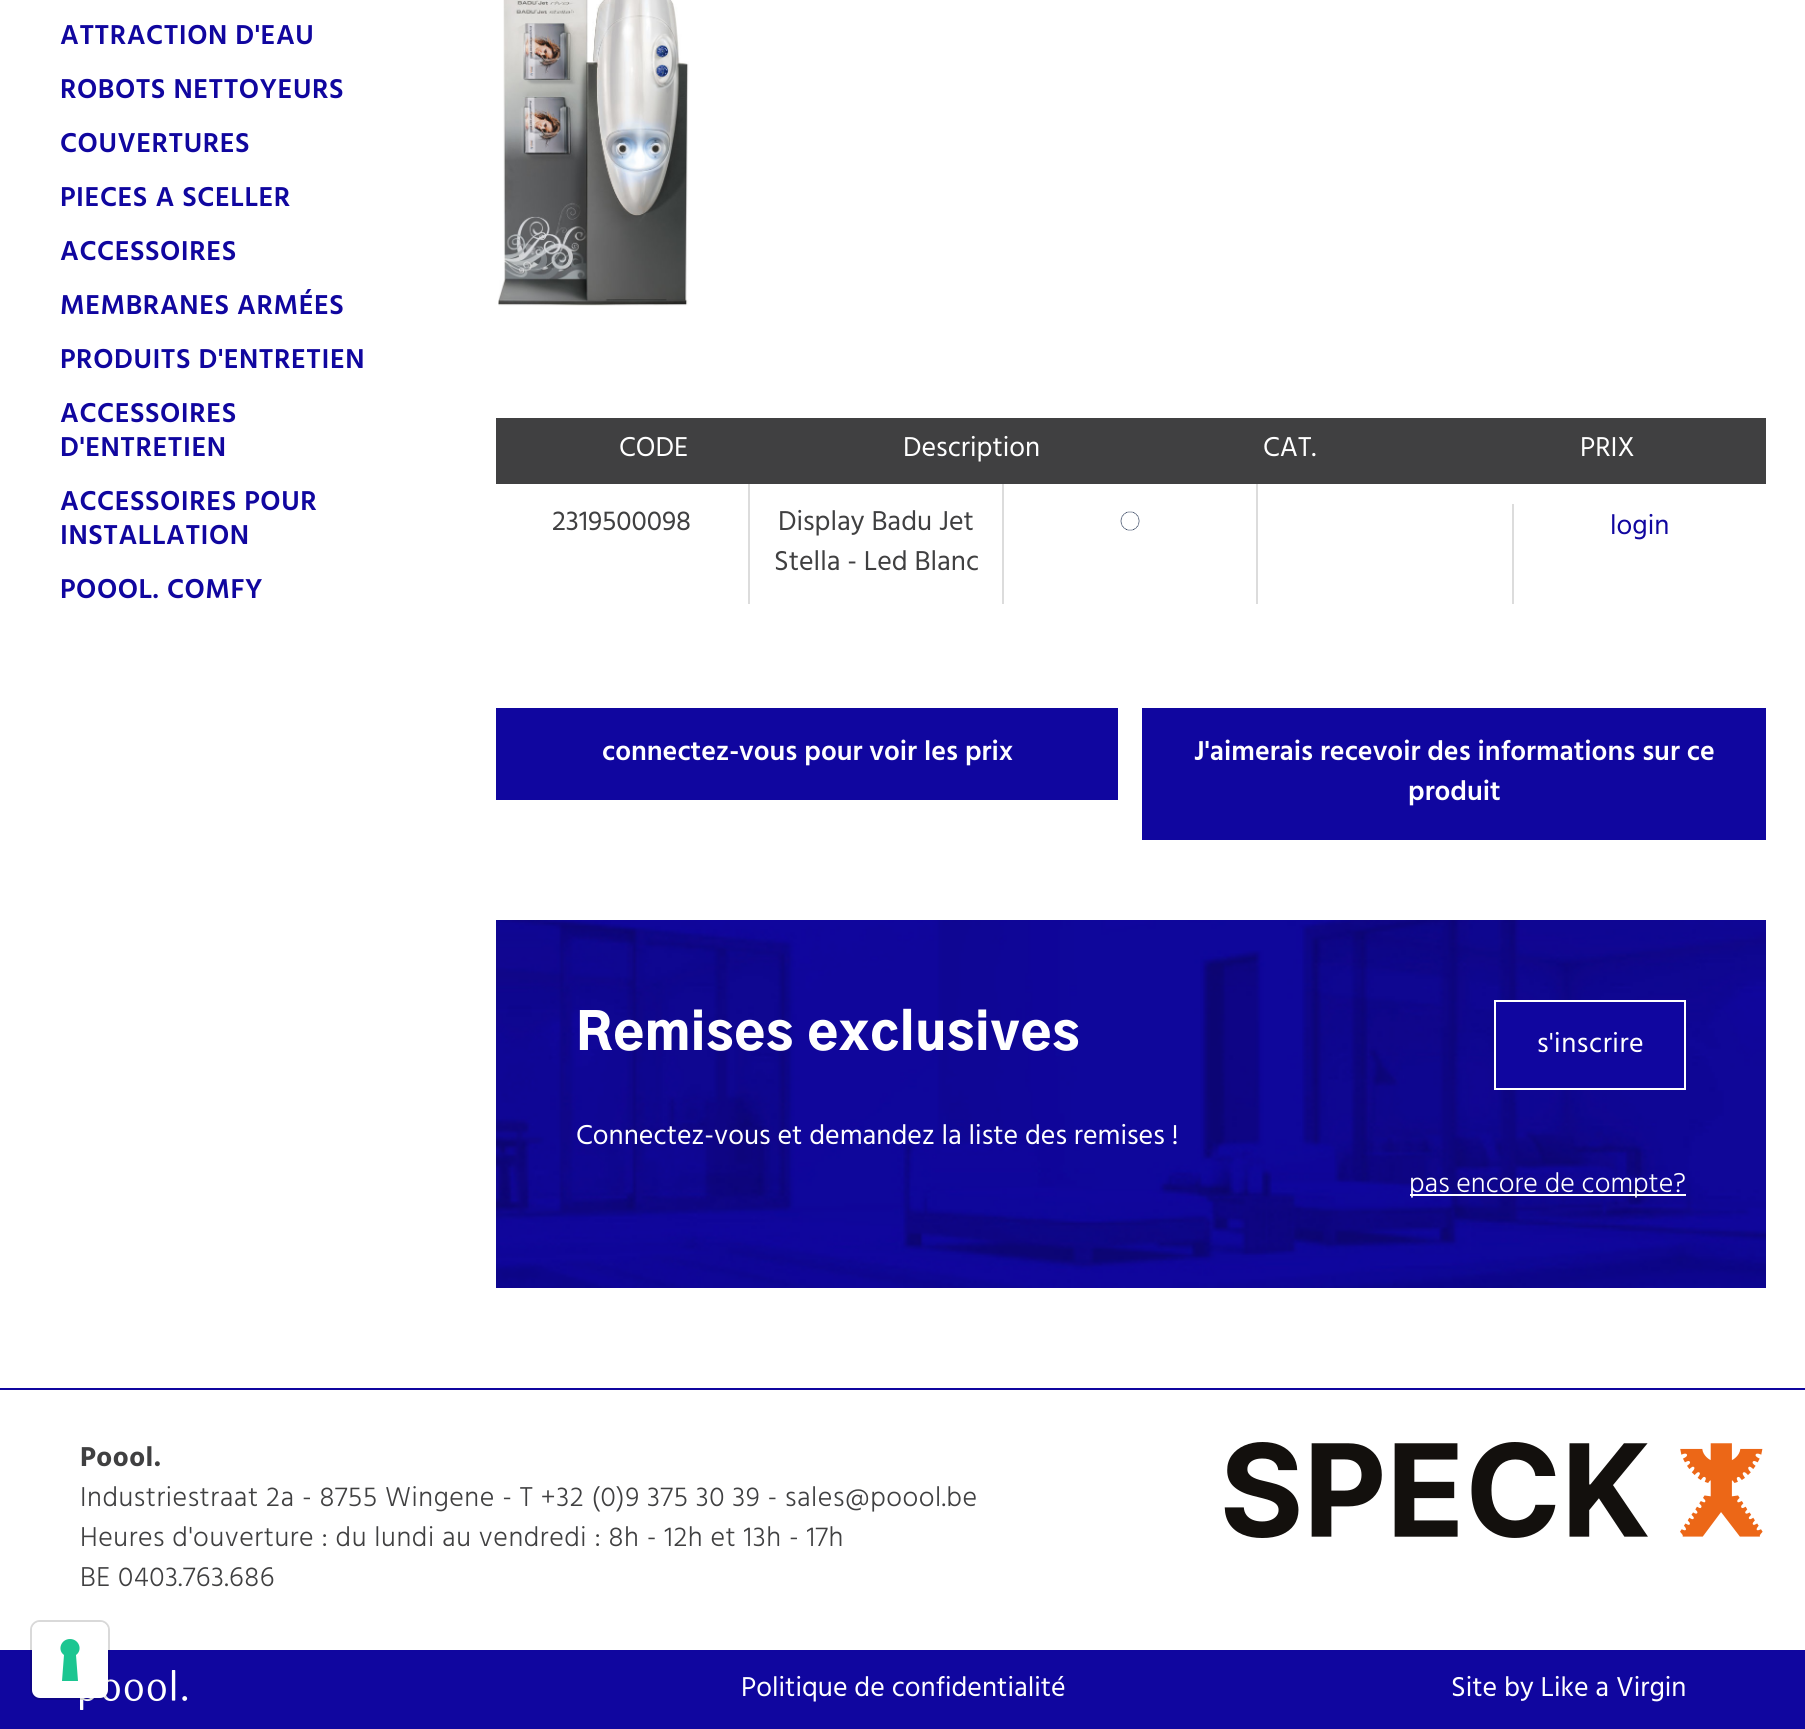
import math
import cairo

surface = cairo.ImageSurface(cairo.FORMAT_RGB24, 1805, 1729)
cr = cairo.Context(surface)
options = cairo.FontOptions()
options.set_hint_metrics(cairo.HINT_METRICS_OFF)
options.set_hint_style(cairo.HINT_STYLE_NONE)
cr.set_font_options(options)
cr.set_miter_limit(4)


def rgb(code):
    cr.set_source_rgb(*(v / 255 for v in bytes.fromhex(code[-6:])))


def tracked(x, y, s, letter, word):
    cr.move_to(x, y)
    for ch in s:
        cr.show_text(ch)
        cr.rel_move_to(letter + word * (ch == ' '), 0)


def rrect(x, y, w, h, r):
    cr.new_sub_path()
    for i, (u, v) in enumerate([(x + w - r, y + h - r), (x + r, y + h - r), (x + r, y + r), (x + w - r, y + r)]):
        cr.arc(u, v, r, i * math.pi / 2, (i + 1) * math.pi / 2)
    cr.close_path()


def image(path, x, y, w, h):
    cr.save()
    cr.set_source_surface(cairo.ImageSurface.create_from_png(path), x, y)
    cr.rectangle(x, y, w, h)
    cr.fill()
    cr.restore()


rgb("#ffffff")
cr.paint()
rgb("#10069f")
cr.rectangle(0, 1388, 1805, 2)
cr.fill()
image("img/1.png", 498, 0, 191, 306)
for x, y, w, h, color in [
    (496, 418, 1270, 66, "#404041"),
    (748, 484, 2, 120, "#dcdcdc"),
    (1002, 484, 2, 120, "#dcdcdc"),
    (1256, 484, 2, 120, "#dcdcdc"),
]:
    rgb(color)
    cr.rectangle(x, y, w, h)
    cr.fill()
image("img/2.png", 1120, 511, 20, 20)
for x, y, w, h, color in [
    (1512, 504, 2, 100, "#dcdcdc"),
    (496, 708, 622, 92, "#10069f"),
    (1142, 708, 624, 132, "#10069f"),
]:
    rgb(color)
    cr.rectangle(x, y, w, h)
    cr.fill()
image("img/3.png", 496, 920, 1270, 368)
cr.rectangle(1495, 1001, 190, 88)
cr.fill_preserve()
rgb("#ffffff")
cr.stroke()
cr.rectangle(1410, 1194, 276, 2)
cr.fill()
image("img/4.png", 1224, 1442, 539, 96)
rgb("#10069f")
cr.rectangle(0, 1650, 1805, 79)
cr.fill()
image("img/5.png", 80, 1670, 108, 40)
rrect(31, 1621, 78, 78, 9)
cr.set_source_rgba(0, 0, 0, 0.15)
cr.stroke()
rgb("#ffffff")
rrect(32, 1622, 76, 76, 8)
cr.fill()
rgb("#1cc691")
cr.set_fill_rule(cairo.FILL_RULE_EVEN_ODD)
cr.new_path()
cr.move_to(70, 1639)
cr.curve_to(79, 1639, 83, 1650, 76, 1655)
cr.line_to(78, 1681)
cr.line_to(62, 1681)
cr.line_to(64, 1655)
cr.curve_to(57, 1650, 61, 1639, 70, 1639)
cr.close_path()
cr.fill()
cr.select_font_face("Hind SemiBold")
cr.set_font_size(28)
rgb("#10069f")
for x, y, s in [
    (60, 44, "ATTRACTION D'EAU"),
    (60, 98, "ROBOTS NETTOYEURS"),
    (60, 152, "COUVERTURES"),
    (60, 206, "PIECES A SCELLER"),
    (60, 260, "ACCESSOIRES"),
    (60, 314, "MEMBRANES ARMÉES"),
    (60, 368, "PRODUITS D'ENTRETIEN"),
    (60, 422, "ACCESSOIRES"),
    (60, 456, "D'ENTRETIEN"),
    (60, 510, "ACCESSOIRES POUR"),
    (60, 544, "INSTALLATION"),
    (60, 598, "POOOL. COMFY"),
]:
    tracked(x, y, s, 0.55, 0)
cr.select_font_face("Hind")
rgb("#ffffff")
for x, y, s in [
    (619, 456, "CODE"),
    (903, 456, "Description"),
    (1263, 456, "CAT."),
    (1580, 456, "PRIX"),
]:
    cr.move_to(x, y)
    cr.show_text(s)
rgb("#404041")
for x, y, s in [
    (552, 530, "2319500098"),
    (778, 530, "Display Badu Jet"),
    (774, 570, "Stella - Led Blanc"),
]:
    cr.move_to(x, y)
    cr.show_text(s)
rgb("#10069f")
cr.move_to(1610, 534)
cr.show_text("login")
cr.select_font_face("Hind SemiBold")
rgb("#ffffff")
for x, y, s in [
    (602, 760, "connectez-vous pour voir les prix"),
    (1194, 760, "J'aimerais recevoir des informations sur ce"),
    (1408, 800, "produit"),
]:
    cr.move_to(x, y)
    cr.show_text(s)
cr.select_font_face("Gothic A1 Black")
cr.set_font_size(50)
tracked(576, 1050, "Remises exclusives", 1, 0)
cr.select_font_face("Hind")
cr.set_font_size(28)
cr.move_to(576, 1144)
cr.show_text("Connectez-vous et demandez la liste des remises !")
tracked(1537, 1052, "s'inscrire", 0.55, 0)
cr.select_font_face("Hind Light")
cr.move_to(1409, 1192)
cr.show_text("pas encore de compte?")
cr.select_font_face("Hind", cairo.FONT_SLANT_NORMAL, cairo.FONT_WEIGHT_BOLD)
rgb("#404041")
tracked(80, 1466, "Poool.", 0.55, 0)
cr.select_font_face("Hind Light")
for x, y, s in [
    (80, 1506, "Industriestraat 2a - 8755 Wingene - T +32 (0)9 375 30 39 - sales@poool.be"),
    (80, 1546, "Heures d'ouverture : du lundi au vendredi : 8h - 12h et 13h - 17h"),
    (80, 1586, "BE 0403.763.686"),
]:
    tracked(x, y, s, 0.55, 0)
cr.select_font_face("Hind")
rgb("#ffffff")
cr.move_to(741, 1696)
cr.show_text("Politique de confidentialité")
cr.move_to(1451, 1696)
cr.show_text("Site by Like a Virgin")
surface.write_to_png("page.png")
